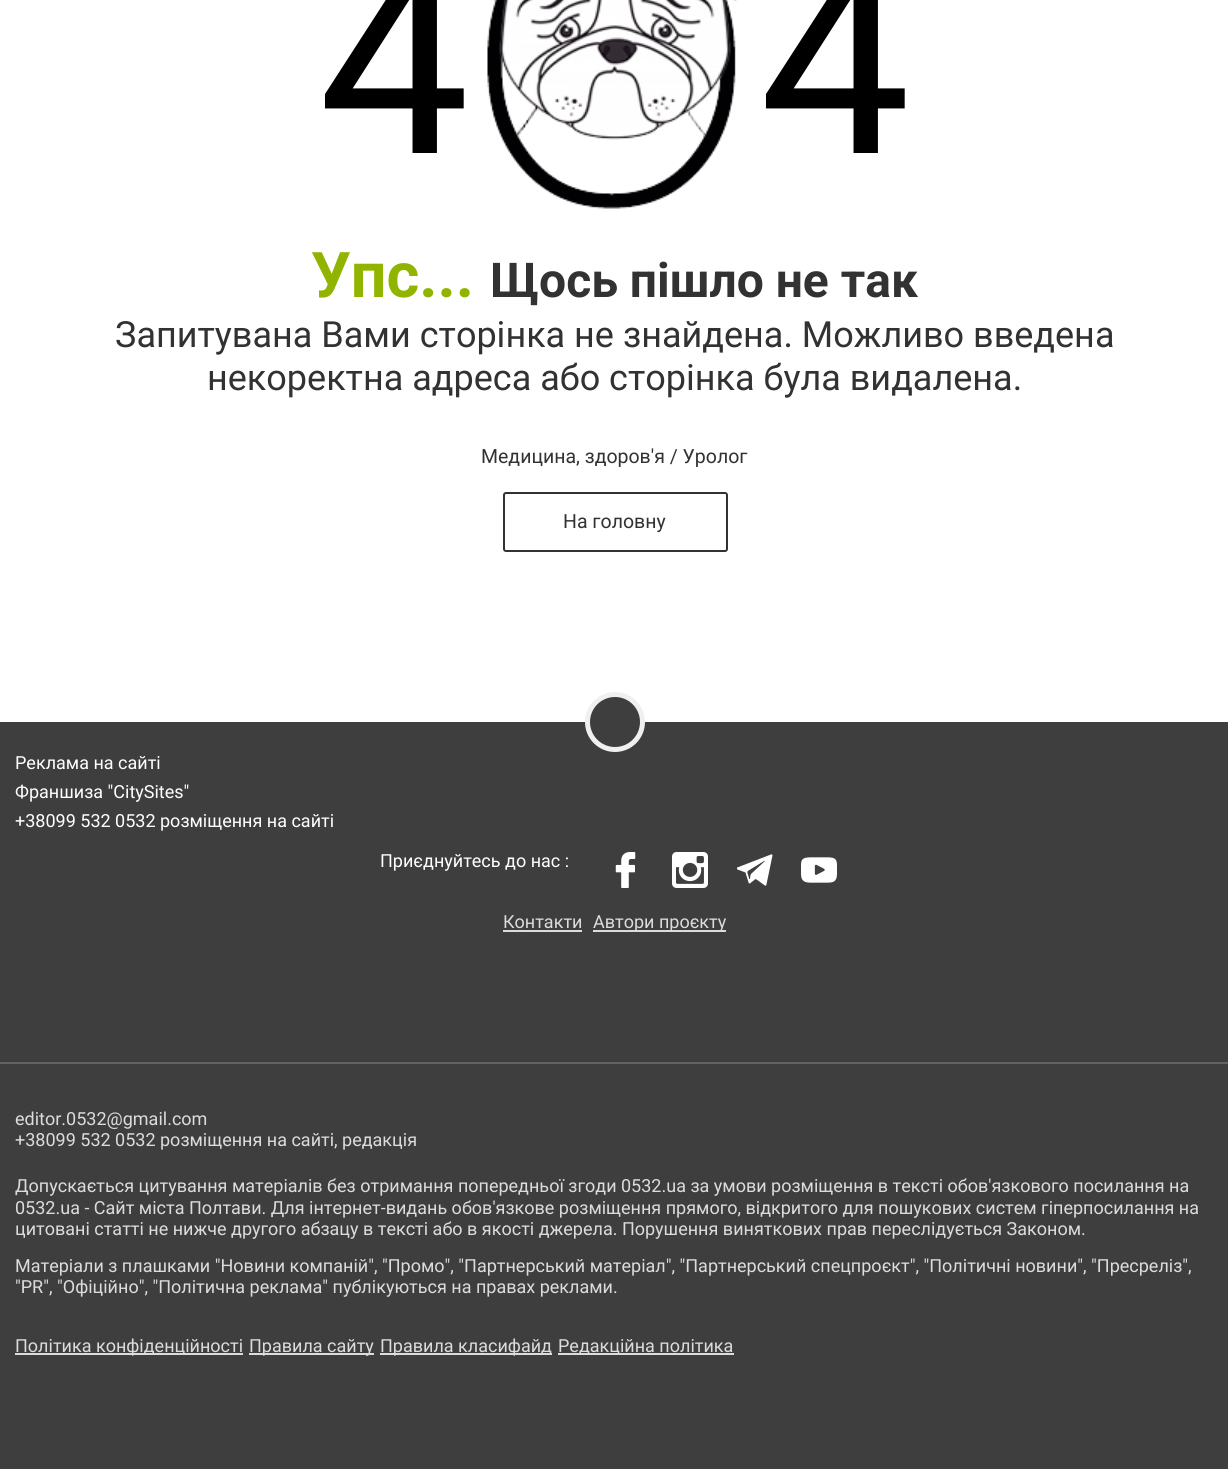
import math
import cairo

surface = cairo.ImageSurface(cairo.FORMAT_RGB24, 1228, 1469)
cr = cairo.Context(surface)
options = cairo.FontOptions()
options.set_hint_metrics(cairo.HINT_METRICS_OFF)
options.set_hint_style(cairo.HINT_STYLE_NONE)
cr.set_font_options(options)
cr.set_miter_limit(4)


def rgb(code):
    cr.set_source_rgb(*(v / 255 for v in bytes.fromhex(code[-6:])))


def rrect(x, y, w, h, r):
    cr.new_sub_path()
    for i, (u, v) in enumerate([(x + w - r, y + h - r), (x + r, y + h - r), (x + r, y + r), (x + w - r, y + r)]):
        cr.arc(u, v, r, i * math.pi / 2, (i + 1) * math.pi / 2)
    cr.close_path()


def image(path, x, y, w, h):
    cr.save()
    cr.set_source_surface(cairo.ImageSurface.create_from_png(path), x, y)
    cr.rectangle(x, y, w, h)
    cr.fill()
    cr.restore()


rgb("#ffffff")
cr.paint()
image("img/1.png", 487, 0, 250, 209)
rrect(504, 493, 223, 58, 2)
rgb("#323232")
cr.stroke()
rgb("#3f3e3e")
cr.rectangle(0, 722, 1228, 747)
cr.fill()
cr.arc(615, 722, 27.5, 0, 2 * math.pi)
cr.fill_preserve()
rgb("#f0f0f0")
cr.set_line_width(5)
cr.stroke()
image("img/2.png", 615, 852, 21, 36)
image("img/3.png", 672, 852, 36, 36)
image("img/4.png", 737, 854, 36, 32)
image("img/5.png", 801, 857, 36, 26)
for x, y, w, h, color in [
    (503, 930, 79, 2, "#dcdcdc"),
    (593, 930, 133, 2, "#dcdcdc"),
    (0, 1062, 1228, 2, "#636262"),
    (15, 1353, 228, 2, "#dcdcdc"),
    (249, 1353, 125, 2, "#dcdcdc"),
    (380, 1353, 172, 2, "#dcdcdc"),
    (558, 1353, 176, 2, "#dcdcdc"),
]:
    rgb(color)
    cr.rectangle(x, y, w, h)
    cr.fill()
cr.select_font_face("Roboto")
cr.set_font_size(270)
rgb("#000000")
cr.move_to(318, 153)
cr.show_text("4")
cr.move_to(759, 153)
cr.show_text("4")
cr.select_font_face("Roboto", cairo.FONT_SLANT_NORMAL, cairo.FONT_WEIGHT_BOLD)
cr.set_font_size(63)
rgb("#90b400")
cr.move_to(311, 297)
cr.show_text("Упс...")
cr.set_font_size(48)
rgb("#323232")
cr.move_to(490, 297)
cr.show_text("Щось пішло не так")
cr.select_font_face("Roboto")
cr.set_font_size(36)
cr.move_to(115, 347)
cr.show_text("Запитувана Вами сторінка не знайдена. Можливо введена")
cr.move_to(207, 390)
cr.show_text("некоректна адреса або сторінка була видалена.")
cr.set_font_size(19.5)
cr.move_to(481, 463)
cr.show_text("Медицина, здоров'я / Уролог")
cr.move_to(563, 528)
cr.show_text("На головну")
cr.set_font_size(18)
rgb("#ffffff")
for x, y, s in [
    (15, 769, "Реклама на сайті"),
    (15, 798, "Франшиза \"CitySites\""),
    (15, 827, "+38099 532 0532 розміщення на сайті"),
    (380, 867, "Приєднуйтесь до нас :"),
]:
    cr.move_to(x, y)
    cr.show_text(s)
rgb("#dcdcdc")
for x, y, s in [
    (503, 928, "Контакти"),
    (593, 928, "Автори проєкту"),
    (15, 1125, "editor.0532@gmail.com"),
    (15, 1146, "+38099 532 0532 розміщення на сайті, редакція"),
    (15, 1192, "Допускається цитування матеріалів без отримання попередньої згоди 0532.ua за умови розміщення в тексті обов'язкового посилання на"),
    (15, 1214, "0532.ua - Сайт міста Полтави. Для інтернет-видань обов'язкове розміщення прямого, відкритого для пошукових систем гіперпосилання на"),
    (15, 1235, "цитовані статті не нижче другого абзацу в тексті або в якості джерела. Порушення виняткових прав переслідується Законом."),
    (15, 1272, "Матеріали з плашками \"Новини компаній\", \"Промо\", \"Партнерський матеріал\", \"Партнерський спецпроєкт\", \"Політичні новини\", \"Пресреліз\","),
    (15, 1293, "\"PR\", \"Офіційно\", \"Політична реклама\" публікуються на правах реклами."),
    (15, 1352, "Політика конфіденційності"),
    (249, 1352, "Правила сайту"),
    (380, 1352, "Правила класифайд"),
    (558, 1352, "Редакційна політика"),
]:
    cr.move_to(x, y)
    cr.show_text(s)
surface.write_to_png("page.png")
